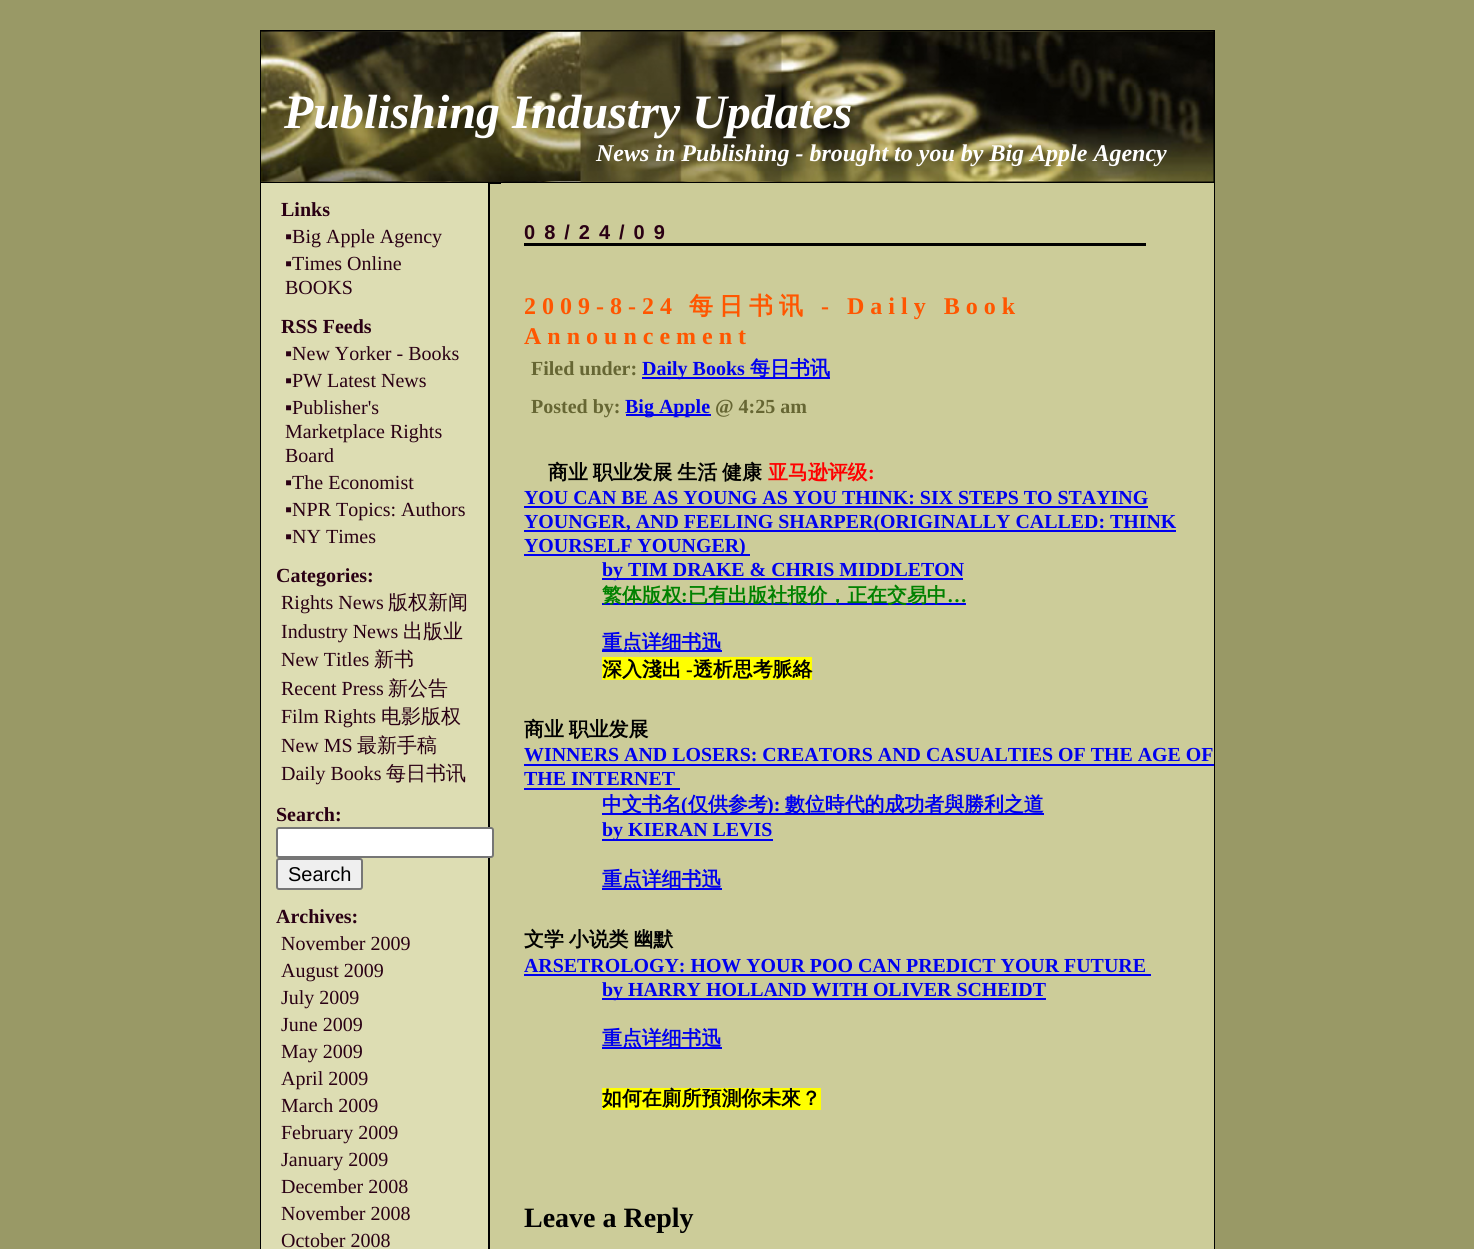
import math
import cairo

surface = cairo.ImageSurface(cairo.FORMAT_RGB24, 1474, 1249)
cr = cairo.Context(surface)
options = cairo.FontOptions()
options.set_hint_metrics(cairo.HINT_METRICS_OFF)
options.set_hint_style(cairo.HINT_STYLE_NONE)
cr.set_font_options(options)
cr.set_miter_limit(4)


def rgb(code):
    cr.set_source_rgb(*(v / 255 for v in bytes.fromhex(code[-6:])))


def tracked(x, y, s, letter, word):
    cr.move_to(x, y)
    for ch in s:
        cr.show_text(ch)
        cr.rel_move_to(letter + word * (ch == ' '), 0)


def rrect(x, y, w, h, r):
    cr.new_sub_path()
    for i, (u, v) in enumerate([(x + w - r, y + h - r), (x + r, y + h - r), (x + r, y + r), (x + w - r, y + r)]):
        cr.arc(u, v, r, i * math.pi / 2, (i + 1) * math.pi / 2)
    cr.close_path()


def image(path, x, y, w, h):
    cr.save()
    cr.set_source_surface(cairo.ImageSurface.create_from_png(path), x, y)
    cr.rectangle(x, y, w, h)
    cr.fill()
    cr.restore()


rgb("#999966")
cr.paint()
rgb("#cccc99")
cr.rectangle(490, 184, 11, 1065)
cr.fill()
cr.rectangle(261, 31, 953, 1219)
rgb("#000000")
cr.stroke()
image("img/1.png", 261, 31, 953, 151)
for x, y, w, h, color in [
    (261, 182, 953, 2, "#000000"),
    (261, 183, 227, 1066, "#ddddb3"),
    (488, 183, 2, 1066, "#000000"),
]:
    rgb(color)
    cr.rectangle(x, y, w, h)
    cr.fill()
rgb("#ffffff")
rrect(277, 828, 216, 29, 2)
cr.fill_preserve()
rgb("#767676")
cr.stroke()
rgb("#efefef")
rrect(277, 859, 85, 30, 2)
cr.fill_preserve()
rgb("#767676")
cr.stroke()
for x, y, w, h, color in [
    (501, 183, 713, 1066, "#cccc99"),
    (524, 243, 622, 3, "#000000"),
    (642, 377, 188, 2, "#0000ee"),
    (626, 414, 85, 2, "#0000ee"),
    (524, 506, 624, 2, "#0000ee"),
    (524, 530, 652, 2, "#0000ee"),
    (524, 554, 226, 2, "#0000ee"),
    (602, 578, 361, 2, "#0000ee"),
    (602, 603, 364, 2, "#0000ee"),
    (602, 650, 120, 2, "#0000ee"),
    (602, 657, 210, 23, "#ffff00"),
    (524, 764, 690, 2, "#0000ee"),
    (524, 788, 156, 2, "#0000ee"),
    (602, 813, 442, 2, "#0000ee"),
    (602, 839, 171, 2, "#0000ee"),
    (602, 888, 120, 2, "#0000ee"),
    (524, 974, 627, 2, "#0000ee"),
    (602, 998, 444, 2, "#0000ee"),
    (602, 1047, 120, 2, "#0000ee"),
    (602, 1088, 219, 22, "#ffff00"),
]:
    rgb(color)
    cr.rectangle(x, y, w, h)
    cr.fill()
cr.select_font_face("Liberation Serif", cairo.FONT_SLANT_ITALIC, cairo.FONT_WEIGHT_BOLD)
cr.set_font_size(48)
rgb("#ffffff")
cr.move_to(284, 128)
cr.show_text("Publishing Industry Updates")
cr.set_font_size(24)
cr.move_to(596, 161)
cr.show_text("News in Publishing - brought to you by Big Apple Agency")
cr.select_font_face("Liberation Serif", cairo.FONT_SLANT_NORMAL, cairo.FONT_WEIGHT_BOLD)
cr.set_font_size(20)
rgb("#2a0014")
cr.move_to(281, 216)
cr.show_text("Links")
cr.select_font_face("Liberation Serif")
for x, y, s in [
    (285, 243, "▪Big Apple Agency"),
    (285, 270, "▪Times Online"),
    (285, 294, "BOOKS"),
]:
    cr.move_to(x, y)
    cr.show_text(s)
cr.select_font_face("Liberation Serif", cairo.FONT_SLANT_NORMAL, cairo.FONT_WEIGHT_BOLD)
cr.move_to(281, 333)
cr.show_text("RSS Feeds")
cr.select_font_face("Liberation Serif")
for x, y, s in [
    (285, 360, "▪New Yorker - Books"),
    (285, 387, "▪PW Latest News"),
    (285, 414, "▪Publisher's"),
    (285, 438, "Marketplace Rights"),
    (285, 462, "Board"),
    (285, 489, "▪The Economist"),
    (285, 516, "▪NPR Topics: Authors"),
    (285, 543, "▪NY Times"),
]:
    cr.move_to(x, y)
    cr.show_text(s)
cr.select_font_face("Liberation Serif", cairo.FONT_SLANT_NORMAL, cairo.FONT_WEIGHT_BOLD)
cr.move_to(276, 582)
cr.show_text("Categories:")
cr.select_font_face("Liberation Serif")
cr.move_to(281, 609)
cr.show_text("Rights News")
cr.select_font_face("WenQuanYi Zen Hei Medium")
cr.move_to(388, 609)
cr.show_text("版权新闻")
cr.select_font_face("Liberation Serif")
cr.move_to(281, 638)
cr.show_text("Industry News")
cr.select_font_face("WenQuanYi Zen Hei Medium")
cr.move_to(403, 638)
cr.show_text("出版业")
cr.select_font_face("Liberation Serif")
cr.move_to(281, 666)
cr.show_text("New Titles")
cr.select_font_face("WenQuanYi Zen Hei Medium")
cr.move_to(374, 666)
cr.show_text("新书")
cr.select_font_face("Liberation Serif")
cr.move_to(281, 695)
cr.show_text("Recent Press")
cr.select_font_face("WenQuanYi Zen Hei Medium")
cr.move_to(388, 695)
cr.show_text("新公告")
cr.select_font_face("Liberation Serif")
cr.move_to(281, 723)
cr.show_text("Film Rights")
cr.select_font_face("WenQuanYi Zen Hei Medium")
cr.move_to(381, 723)
cr.show_text("电影版权")
cr.select_font_face("Liberation Serif")
cr.move_to(281, 752)
cr.show_text("New MS")
cr.select_font_face("WenQuanYi Zen Hei Medium")
cr.move_to(357, 752)
cr.show_text("最新手稿")
cr.select_font_face("Liberation Serif")
cr.move_to(281, 780)
cr.show_text("Daily Books")
cr.select_font_face("WenQuanYi Zen Hei Medium")
cr.move_to(386, 780)
cr.show_text("每日书讯")
cr.select_font_face("Liberation Serif", cairo.FONT_SLANT_NORMAL, cairo.FONT_WEIGHT_BOLD)
cr.move_to(276, 821)
cr.show_text("Search:")
cr.select_font_face("Liberation Sans")
rgb("#000000")
cr.move_to(288, 881)
cr.show_text("Search")
cr.select_font_face("Liberation Serif", cairo.FONT_SLANT_NORMAL, cairo.FONT_WEIGHT_BOLD)
rgb("#2a0014")
cr.move_to(276, 923)
cr.show_text("Archives:")
cr.select_font_face("Liberation Serif")
for x, y, s in [
    (281, 950, "November 2009"),
    (281, 977, "August 2009"),
    (281, 1004, "July 2009"),
    (281, 1031, "June 2009"),
    (281, 1058, "May 2009"),
    (281, 1085, "April 2009"),
    (281, 1112, "March 2009"),
    (281, 1139, "February 2009"),
    (281, 1166, "January 2009"),
    (281, 1193, "December 2008"),
    (281, 1220, "November 2008"),
    (281, 1247, "October 2008"),
]:
    cr.move_to(x, y)
    cr.show_text(s)
cr.select_font_face("Liberation Sans", cairo.FONT_SLANT_NORMAL, cairo.FONT_WEIGHT_BOLD)
tracked(524, 239, "08/24/09", 9, 0)
cr.select_font_face("Liberation Serif", cairo.FONT_SLANT_NORMAL, cairo.FONT_WEIGHT_BOLD)
cr.set_font_size(24)
rgb("#ff5600")
tracked(524, 314, "2009-8-24", 6, 0)
cr.select_font_face("WenQuanYi Zen Hei", cairo.FONT_SLANT_NORMAL, cairo.FONT_WEIGHT_BOLD)
tracked(689, 314, "每日书讯", 6, 0)
cr.select_font_face("Liberation Serif", cairo.FONT_SLANT_NORMAL, cairo.FONT_WEIGHT_BOLD)
tracked(821, 314, "- Daily Book", 6, 0)
tracked(524, 344, "Announcement", 6, 0)
cr.set_font_size(20)
rgb("#666633")
cr.move_to(531, 375)
cr.show_text("Filed under:")
rgb("#0000ee")
cr.move_to(642, 375)
cr.show_text("Daily Books")
cr.select_font_face("WenQuanYi Zen Hei", cairo.FONT_SLANT_NORMAL, cairo.FONT_WEIGHT_BOLD)
cr.move_to(750, 375)
cr.show_text("每日书讯")
cr.select_font_face("Liberation Serif", cairo.FONT_SLANT_NORMAL, cairo.FONT_WEIGHT_BOLD)
rgb("#666633")
cr.move_to(531, 413)
cr.show_text("Posted by:")
rgb("#0000ee")
cr.move_to(625, 413)
cr.show_text("Big Apple")
rgb("#666633")
cr.move_to(715, 413)
cr.show_text("@ 4:25 am")
cr.select_font_face("WenQuanYi Zen Hei", cairo.FONT_SLANT_NORMAL, cairo.FONT_WEIGHT_BOLD)
cr.set_font_size(19.9)
rgb("#000000")
tracked(548, 479, "商业 职业发展 生活 健康", 0, -1)
rgb("#ff0000")
cr.move_to(768, 479)
cr.show_text("亚马逊评级")
cr.select_font_face("Liberation Serif", cairo.FONT_SLANT_NORMAL, cairo.FONT_WEIGHT_BOLD)
cr.move_to(868, 479)
cr.show_text(":")
rgb("#0000ee")
for x, y, s in [
    (524, 504, "YOU CAN BE AS YOUNG AS YOU THINK: SIX STEPS TO STAYING"),
    (524, 528, "YOUNGER, AND FEELING SHARPER(ORIGINALLY CALLED: THINK"),
    (524, 552, "YOURSELF YOUNGER)"),
    (602, 576, "by TIM DRAKE & CHRIS MIDDLETON"),
]:
    cr.move_to(x, y)
    cr.show_text(s)
cr.select_font_face("WenQuanYi Zen Hei", cairo.FONT_SLANT_NORMAL, cairo.FONT_WEIGHT_BOLD)
rgb("#008100")
cr.move_to(602, 602)
cr.show_text("繁体版权")
cr.select_font_face("Liberation Serif", cairo.FONT_SLANT_NORMAL, cairo.FONT_WEIGHT_BOLD)
cr.move_to(681, 602)
cr.show_text(":")
cr.select_font_face("WenQuanYi Zen Hei", cairo.FONT_SLANT_NORMAL, cairo.FONT_WEIGHT_BOLD)
cr.move_to(688, 602)
cr.show_text("已有出版社报价，正在交易中")
cr.select_font_face("Liberation Serif", cairo.FONT_SLANT_NORMAL, cairo.FONT_WEIGHT_BOLD)
cr.move_to(947, 602)
cr.show_text("…")
cr.select_font_face("WenQuanYi Zen Hei", cairo.FONT_SLANT_NORMAL, cairo.FONT_WEIGHT_BOLD)
rgb("#0000ee")
cr.move_to(602, 649)
cr.show_text("重点详细书迅")
rgb("#000000")
cr.move_to(602, 676)
cr.show_text("深入淺出")
cr.select_font_face("Liberation Serif", cairo.FONT_SLANT_NORMAL, cairo.FONT_WEIGHT_BOLD)
cr.move_to(686, 676)
cr.show_text("-")
cr.select_font_face("WenQuanYi Zen Hei", cairo.FONT_SLANT_NORMAL, cairo.FONT_WEIGHT_BOLD)
cr.move_to(693, 676)
cr.show_text("透析思考脈絡")
tracked(524, 736, "商业 职业发展", 0, -1)
cr.select_font_face("Liberation Serif", cairo.FONT_SLANT_NORMAL, cairo.FONT_WEIGHT_BOLD)
rgb("#0000ee")
cr.move_to(524, 761)
cr.show_text("WINNERS AND LOSERS: CREATORS AND CASUALTIES OF THE AGE OF")
cr.move_to(524, 785)
cr.show_text("THE INTERNET")
cr.select_font_face("WenQuanYi Zen Hei", cairo.FONT_SLANT_NORMAL, cairo.FONT_WEIGHT_BOLD)
cr.move_to(602, 811)
cr.show_text("中文书名")
cr.select_font_face("Liberation Serif", cairo.FONT_SLANT_NORMAL, cairo.FONT_WEIGHT_BOLD)
cr.move_to(681, 811)
cr.show_text("(")
cr.select_font_face("WenQuanYi Zen Hei", cairo.FONT_SLANT_NORMAL, cairo.FONT_WEIGHT_BOLD)
cr.move_to(688, 811)
cr.show_text("仅供参考")
cr.select_font_face("Liberation Serif", cairo.FONT_SLANT_NORMAL, cairo.FONT_WEIGHT_BOLD)
cr.move_to(767, 811)
cr.show_text("):")
cr.select_font_face("WenQuanYi Zen Hei", cairo.FONT_SLANT_NORMAL, cairo.FONT_WEIGHT_BOLD)
cr.move_to(785, 811)
cr.show_text("數位時代的成功者與勝利之道")
cr.select_font_face("Liberation Serif", cairo.FONT_SLANT_NORMAL, cairo.FONT_WEIGHT_BOLD)
cr.move_to(602, 836)
cr.show_text("by KIERAN LEVIS")
cr.select_font_face("WenQuanYi Zen Hei", cairo.FONT_SLANT_NORMAL, cairo.FONT_WEIGHT_BOLD)
cr.move_to(602, 886)
cr.show_text("重点详细书迅")
rgb("#000000")
tracked(524, 946, "文学 小说类 幽默", 0, -1)
cr.select_font_face("Liberation Serif", cairo.FONT_SLANT_NORMAL, cairo.FONT_WEIGHT_BOLD)
rgb("#0000ee")
cr.move_to(524, 972)
cr.show_text("ARSETROLOGY: HOW YOUR POO CAN PREDICT YOUR FUTURE")
cr.move_to(602, 996)
cr.show_text("by HARRY HOLLAND WITH OLIVER SCHEIDT")
cr.select_font_face("WenQuanYi Zen Hei", cairo.FONT_SLANT_NORMAL, cairo.FONT_WEIGHT_BOLD)
cr.move_to(602, 1045)
cr.show_text("重点详细书迅")
rgb("#000000")
cr.move_to(602, 1105)
cr.show_text("如何在廁所預測你未來？")
cr.select_font_face("Liberation Serif", cairo.FONT_SLANT_NORMAL, cairo.FONT_WEIGHT_BOLD)
cr.set_font_size(28)
cr.move_to(524, 1227)
cr.show_text("Leave a Reply")
surface.write_to_png("page.png")
